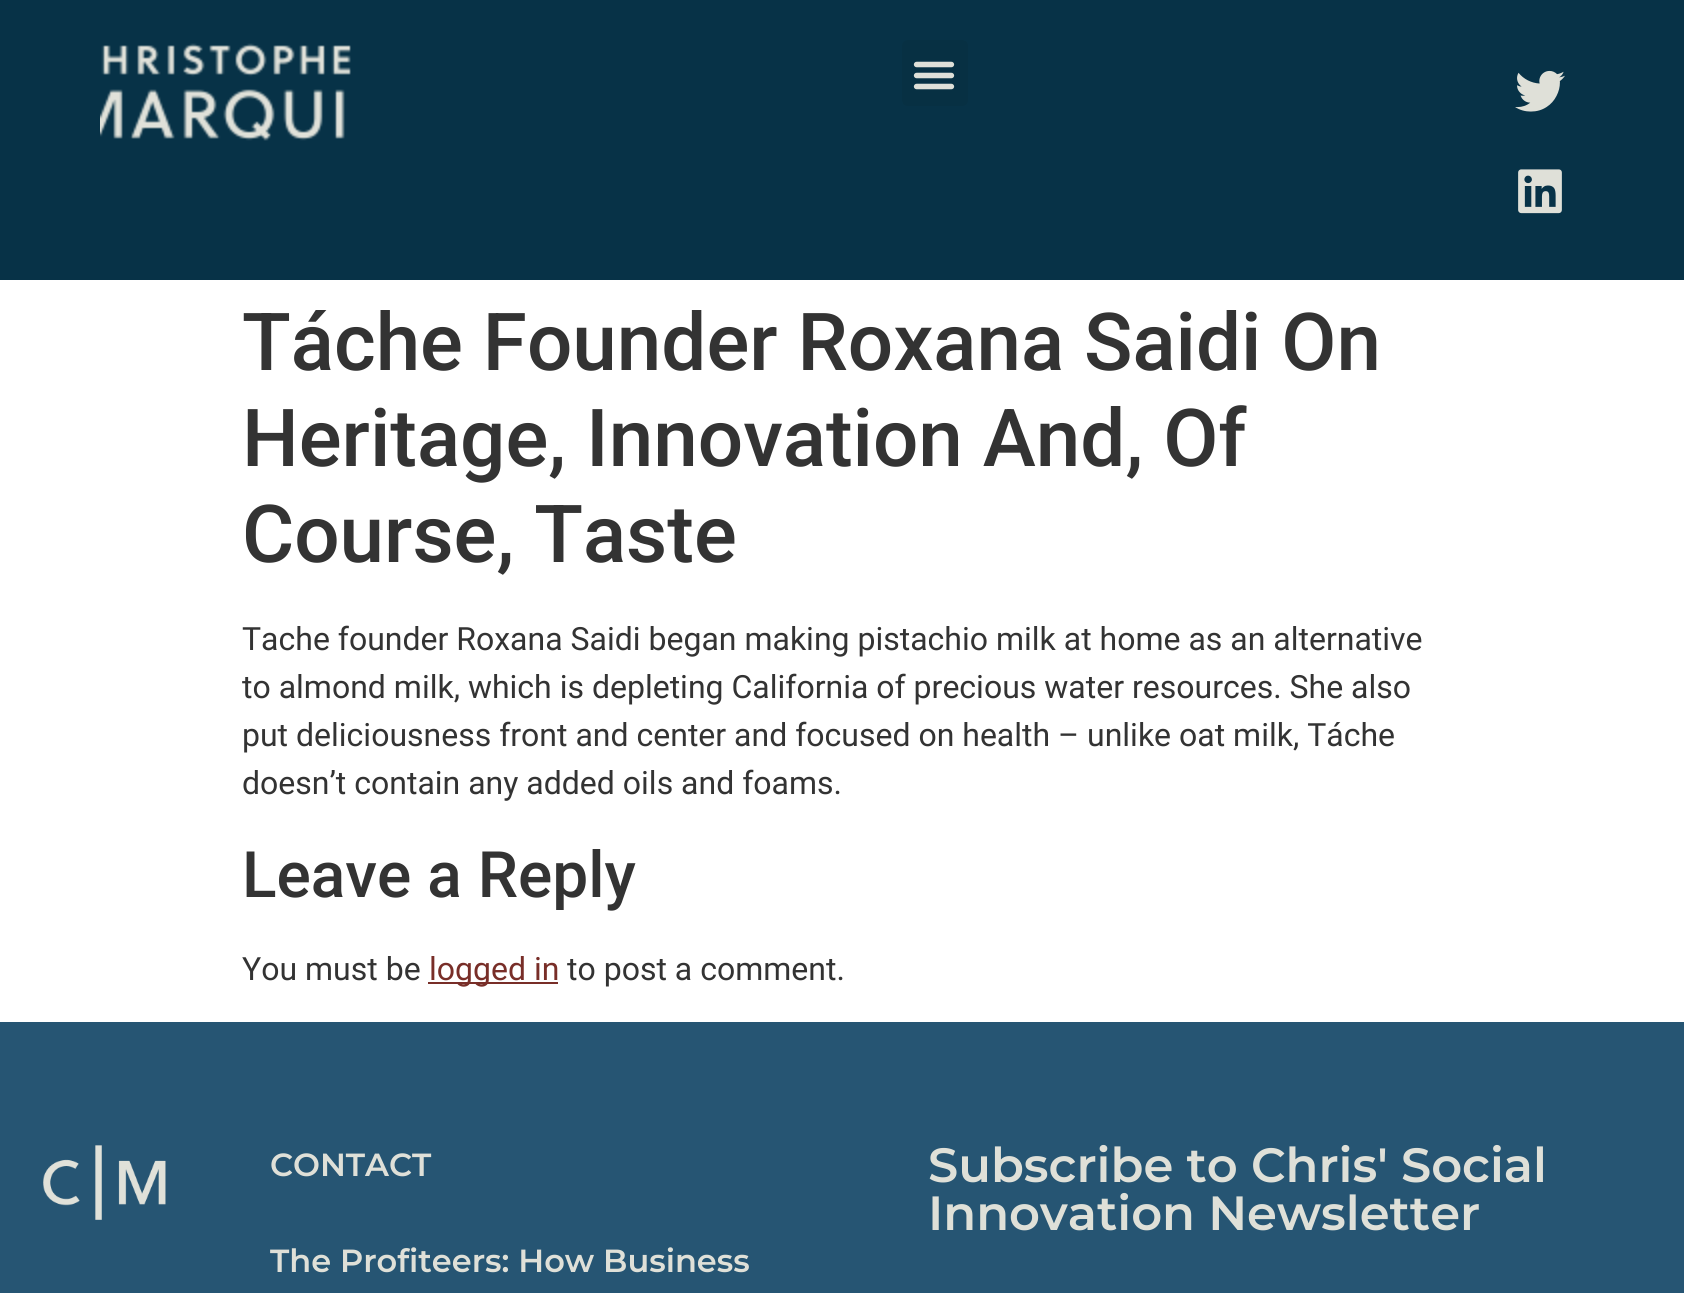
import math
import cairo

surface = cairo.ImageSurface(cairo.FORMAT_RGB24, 1684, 1293)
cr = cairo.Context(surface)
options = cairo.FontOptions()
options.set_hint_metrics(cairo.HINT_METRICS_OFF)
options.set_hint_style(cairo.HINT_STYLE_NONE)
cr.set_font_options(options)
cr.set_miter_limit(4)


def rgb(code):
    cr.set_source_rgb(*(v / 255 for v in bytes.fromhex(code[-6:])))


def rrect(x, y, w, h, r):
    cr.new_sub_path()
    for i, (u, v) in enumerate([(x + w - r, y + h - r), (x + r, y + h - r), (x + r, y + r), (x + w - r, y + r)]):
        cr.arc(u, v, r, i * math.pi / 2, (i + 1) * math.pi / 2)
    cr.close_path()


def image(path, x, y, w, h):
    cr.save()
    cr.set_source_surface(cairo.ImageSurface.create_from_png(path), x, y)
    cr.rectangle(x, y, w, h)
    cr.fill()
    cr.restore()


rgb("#ffffff")
cr.paint()
rgb("#073247")
cr.rectangle(0, 0, 1684, 280)
cr.fill()
image("img/1.png", 100, 43, 251, 98)
rgb("#073043")
rrect(902, 40, 66, 66, 6)
cr.fill()
image("img/2.png", 913, 61, 42, 29)
image("img/3.png", 1515, 70, 50, 42)
image("img/4.png", 1518, 169, 44, 45)
rgb("#782e28")
cr.rectangle(428, 982, 130, 2)
cr.fill()
rgb("#265573")
cr.rectangle(0, 1022, 1684, 271)
cr.fill()
image("img/5.png", 43, 1145, 123, 75)
cr.select_font_face("Roboto Medium")
cr.set_font_size(80)
rgb("#333333")
for x, y, s in [
    (242, 370, "Táche Founder Roxana Saidi On"),
    (242, 466, "Heritage, Innovation And, Of"),
    (242, 562, "Course, Taste"),
]:
    cr.move_to(x, y)
    cr.show_text(s)
cr.select_font_face("Roboto")
cr.set_font_size(32)
for x, y, s in [
    (242, 650, "Tache founder Roxana Saidi began making pistachio milk at home as an alternative"),
    (242, 698, "to almond milk, which is depleting California of precious water resources. She also"),
    (242, 746, "put deliciousness front and center and focused on health – unlike oat milk, Táche"),
    (242, 794, "doesn’t contain any added oils and foams."),
]:
    cr.move_to(x, y)
    cr.show_text(s)
cr.select_font_face("Roboto Medium")
cr.set_font_size(64)
cr.move_to(242, 897)
cr.show_text("Leave a Reply")
cr.select_font_face("Roboto")
cr.set_font_size(32)
cr.move_to(242, 980)
cr.show_text("You must be")
rgb("#782e28")
cr.move_to(429, 980)
cr.show_text("logged in")
rgb("#333333")
cr.move_to(567, 980)
cr.show_text("to post a comment.")
cr.select_font_face("Montserrat SemiBold")
rgb("#dfe0d8")
cr.move_to(270, 1176)
cr.show_text("CONTACT")
cr.move_to(270, 1272)
cr.show_text("The Profiteers: How Business")
cr.set_font_size(48)
cr.move_to(928, 1182)
cr.show_text("Subscribe to Chris' Social")
cr.move_to(928, 1230)
cr.show_text("Innovation Newsletter")
surface.write_to_png("page.png")
